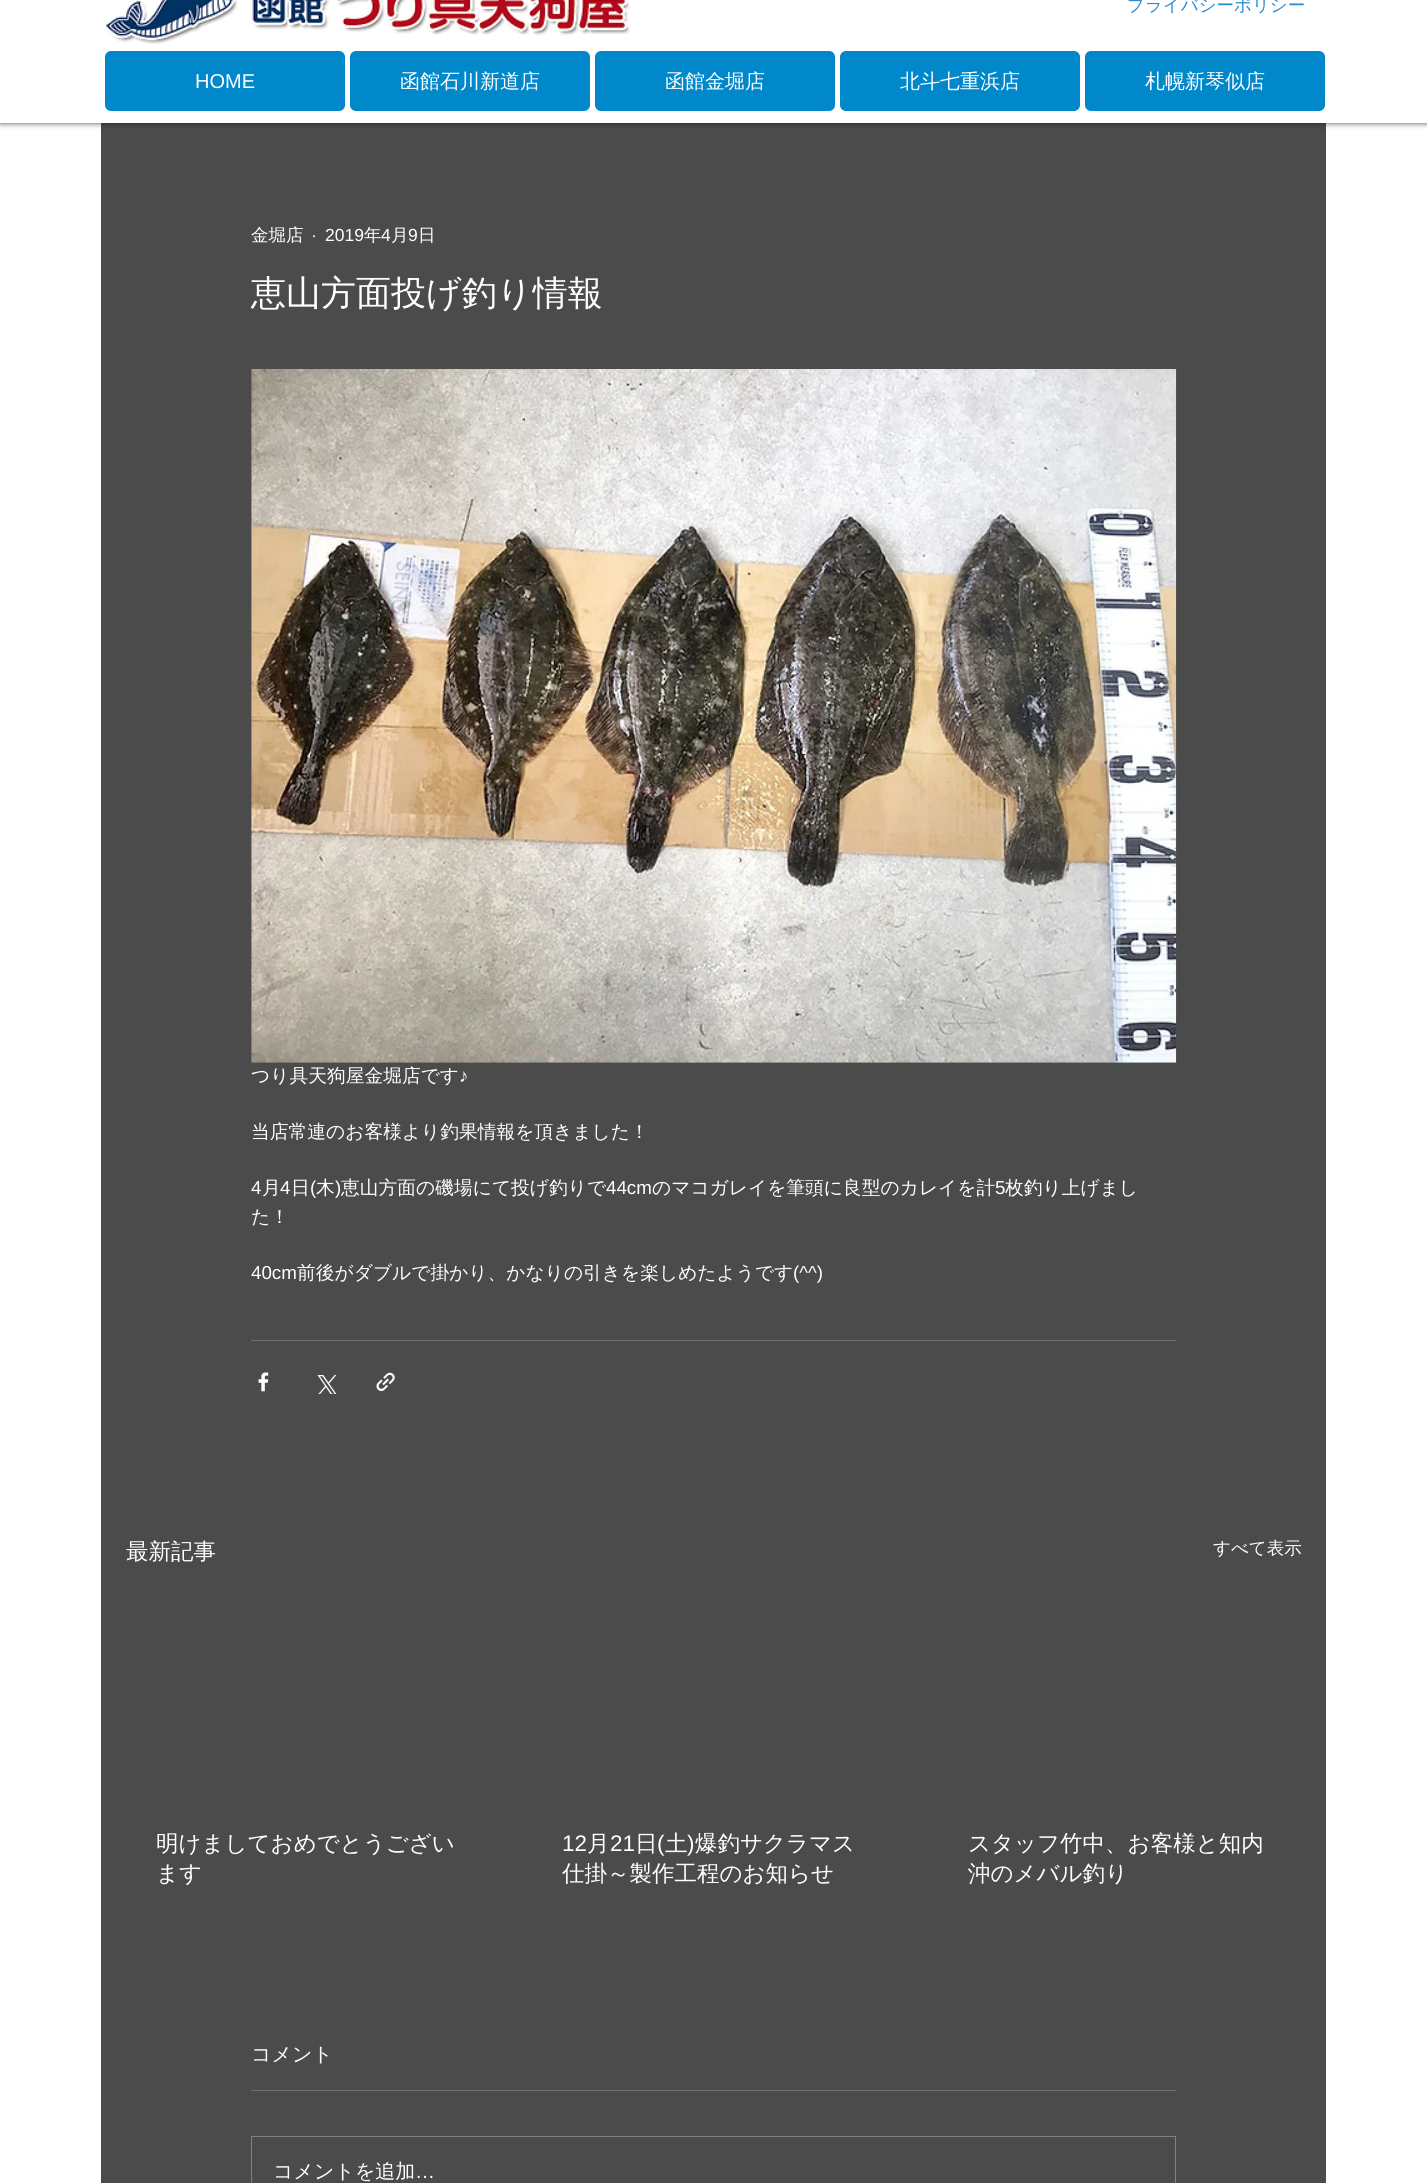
import math
import cairo

surface = cairo.ImageSurface(cairo.FORMAT_RGB24, 1427, 2183)
cr = cairo.Context(surface)
options = cairo.FontOptions()
options.set_hint_metrics(cairo.HINT_METRICS_OFF)
options.set_hint_style(cairo.HINT_STYLE_NONE)
cr.set_font_options(options)
cr.set_miter_limit(4)


def rgb(code):
    cr.set_source_rgb(*(v / 255 for v in bytes.fromhex(code[-6:])))


def rrect(x, y, w, h, r):
    cr.new_sub_path()
    for i, (u, v) in enumerate([(x + w - r, y + h - r), (x + r, y + h - r), (x + r, y + r), (x + w - r, y + r)]):
        cr.arc(u, v, r, i * math.pi / 2, (i + 1) * math.pi / 2)
    cr.close_path()


def soft_shadow(x, y, w, h, r, blur, alpha):
    cr.push_group_with_content(cairo.CONTENT_ALPHA)
    cr.set_operator(cairo.OPERATOR_SOURCE)
    for i in range(15, -16, -2):
        e = blur * i / 6
        if min(w, h) + 2 * e > 0:
            cr.set_source_rgba(0, 0, 0, alpha * math.erfc((i - 1) / 8.5) / 2)
            rrect(x - e, y - e, w + 2 * e, h + 2 * e, max(0, min(r + e + blur * .6, min(w, h) / 2 + e)))
            cr.fill()
    cr.mask(cr.pop_group())


def image(path, x, y, w, h):
    cr.save()
    cr.set_source_surface(cairo.ImageSurface.create_from_png(path), x, y)
    cr.rectangle(x, y, w, h)
    cr.fill()
    cr.restore()


rgb("#ffffff")
cr.paint()
cr.save()
cr.set_fill_rule(cairo.FILL_RULE_EVEN_ODD)
cr.new_path()
cr.move_to(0, 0)
cr.line_to(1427, 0)
cr.line_to(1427, 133)
cr.line_to(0, 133)
cr.close_path()
cr.move_to(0, -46)
cr.line_to(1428, -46)
cr.line_to(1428, 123)
cr.line_to(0, 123)
cr.close_path()
cr.clip()
rgb("#000000")
soft_shadow(0, -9, 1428, 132, 0, 3, 0.7)
cr.restore()
cr.set_source_rgba(1, 1, 1, 0.51)
cr.rectangle(0, 122, 1427, 1)
cr.fill()
image("img/1.png", 106, 0, 524, 44)
rgb("#0088cb")
rrect(105, 51, 240, 60, 6)
cr.fill()
rrect(350, 51, 240, 60, 6)
cr.fill()
rrect(595, 51, 240, 60, 6)
cr.fill()
rrect(840, 51, 240, 60, 6)
cr.fill()
rrect(1085, 51, 240, 60, 6)
cr.fill()
cr.set_source_rgba(0.059, 0.059, 0.059, 0.75)
cr.rectangle(101, 123, 1225, 2060)
cr.fill()
image("img/2.png", 251, 369, 926, 694)
rgb("#6f6f6f")
cr.rectangle(251, 1340, 925, 1)
cr.fill()
image("img/3.png", 258, 1372, 11, 20)
image("img/4.png", 317, 1375, 19, 19)
image("img/5.png", 376, 1372, 19, 19)
cr.rectangle(251, 2090, 925, 1)
cr.fill()
cr.rectangle(251.5, 2136.5, 924, 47)
rgb("#818181")
cr.set_line_width(1)
cr.stroke()
cr.select_font_face("WenQuanYi Zen Hei Medium")
cr.set_font_size(17.5)
rgb("#288dd1")
cr.move_to(1127, 11)
cr.show_text("プライバシーポリシー")
cr.select_font_face("Liberation Sans")
cr.set_font_size(20)
rgb("#ffffff")
cr.move_to(195, 88)
cr.show_text("HOME")
cr.select_font_face("WenQuanYi Zen Hei Medium")
for x, y, s in [
    (400, 88, "函館石川新道店"),
    (665, 88, "函館金堀店"),
    (900, 88, "北斗七重浜店"),
    (1145, 88, "札幌新琴似店"),
]:
    cr.move_to(x, y)
    cr.show_text(s)
cr.set_font_size(17.5)
cr.move_to(251, 241)
cr.show_text("金堀店")
cr.select_font_face("Liberation Sans")
cr.move_to(311, 241)
cr.show_text("·")
cr.move_to(325, 241)
cr.show_text("2019")
cr.select_font_face("WenQuanYi Zen Hei Medium")
cr.move_to(364, 241)
cr.show_text("年")
cr.select_font_face("Liberation Sans")
cr.move_to(381, 241)
cr.show_text("4")
cr.select_font_face("WenQuanYi Zen Hei Medium")
cr.move_to(391, 241)
cr.show_text("月")
cr.select_font_face("Liberation Sans")
cr.move_to(408, 241)
cr.show_text("9")
cr.select_font_face("WenQuanYi Zen Hei Medium")
cr.move_to(418, 241)
cr.show_text("日")
cr.set_font_size(35)
cr.move_to(251, 305)
cr.show_text("恵山方面投げ釣り情報")
cr.set_font_size(18.75)
cr.move_to(251, 1082)
cr.show_text("つり具天狗屋金堀店です")
cr.select_font_face("Liberation Sans")
cr.move_to(459, 1082)
cr.show_text("♪")
cr.select_font_face("WenQuanYi Zen Hei Medium")
cr.move_to(251, 1138)
cr.show_text("当店常連のお客様より釣果情報を頂きました！")
cr.select_font_face("Liberation Sans")
cr.move_to(251, 1194)
cr.show_text("4")
cr.select_font_face("WenQuanYi Zen Hei Medium")
cr.move_to(262, 1194)
cr.show_text("月")
cr.select_font_face("Liberation Sans")
cr.move_to(280, 1194)
cr.show_text("4")
cr.select_font_face("WenQuanYi Zen Hei Medium")
cr.move_to(291, 1194)
cr.show_text("日")
cr.select_font_face("Liberation Sans")
cr.move_to(310, 1194)
cr.show_text("(")
cr.select_font_face("WenQuanYi Zen Hei Medium")
cr.move_to(316, 1194)
cr.show_text("木")
cr.select_font_face("Liberation Sans")
cr.move_to(335, 1194)
cr.show_text(")")
cr.select_font_face("WenQuanYi Zen Hei Medium")
cr.move_to(341, 1194)
cr.show_text("恵山方面の磯場にて投げ釣りで")
cr.select_font_face("Liberation Sans")
cr.move_to(606, 1194)
cr.show_text("44cm")
cr.select_font_face("WenQuanYi Zen Hei Medium")
cr.move_to(652, 1194)
cr.show_text("のマコガレイを筆頭に良型のカレイを計")
cr.select_font_face("Liberation Sans")
cr.move_to(995, 1194)
cr.show_text("5")
cr.select_font_face("WenQuanYi Zen Hei Medium")
cr.move_to(1005, 1194)
cr.show_text("枚釣り上げまし")
cr.move_to(251, 1223)
cr.show_text("た！")
cr.select_font_face("Liberation Sans")
cr.move_to(251, 1279)
cr.show_text("40cm")
cr.select_font_face("WenQuanYi Zen Hei Medium")
cr.move_to(297, 1279)
cr.show_text("前後がダブルで掛かり、かなりの引きを楽しめたようです")
cr.select_font_face("Liberation Sans")
cr.move_to(793, 1279)
cr.show_text("(^^)")
cr.select_font_face("WenQuanYi Zen Hei Medium")
cr.set_font_size(22.5)
cr.move_to(126, 1559)
cr.show_text("最新記事")
cr.set_font_size(17.5)
cr.move_to(1213, 1554)
cr.show_text("すべて表示")
cr.set_font_size(22.5)
cr.move_to(156, 1851)
cr.show_text("明けましておめでとうござい")
cr.move_to(156, 1881)
cr.show_text("ます")
cr.select_font_face("Liberation Sans")
cr.move_to(562, 1851)
cr.show_text("12")
cr.select_font_face("WenQuanYi Zen Hei Medium")
cr.move_to(587, 1851)
cr.show_text("月")
cr.select_font_face("Liberation Sans")
cr.move_to(610, 1851)
cr.show_text("21")
cr.select_font_face("WenQuanYi Zen Hei Medium")
cr.move_to(635, 1851)
cr.show_text("日")
cr.select_font_face("Liberation Sans")
cr.move_to(657, 1851)
cr.show_text("(")
cr.select_font_face("WenQuanYi Zen Hei Medium")
cr.move_to(665, 1851)
cr.show_text("土")
cr.select_font_face("Liberation Sans")
cr.move_to(687, 1851)
cr.show_text(")")
cr.select_font_face("WenQuanYi Zen Hei Medium")
for x, y, s in [
    (695, 1851, "爆釣サクラマス"),
    (562, 1881, "仕掛～製作工程のお知らせ"),
    (968, 1851, "スタッフ竹中、お客様と知内"),
    (968, 1881, "沖のメバル釣り"),
]:
    cr.move_to(x, y)
    cr.show_text(s)
cr.set_font_size(20)
cr.move_to(251, 2061)
cr.show_text("コメント")
cr.move_to(273, 2178)
cr.show_text("コメントを追加")
cr.select_font_face("Liberation Sans")
cr.move_to(415, 2178)
cr.show_text("…")
surface.write_to_png("page.png")
